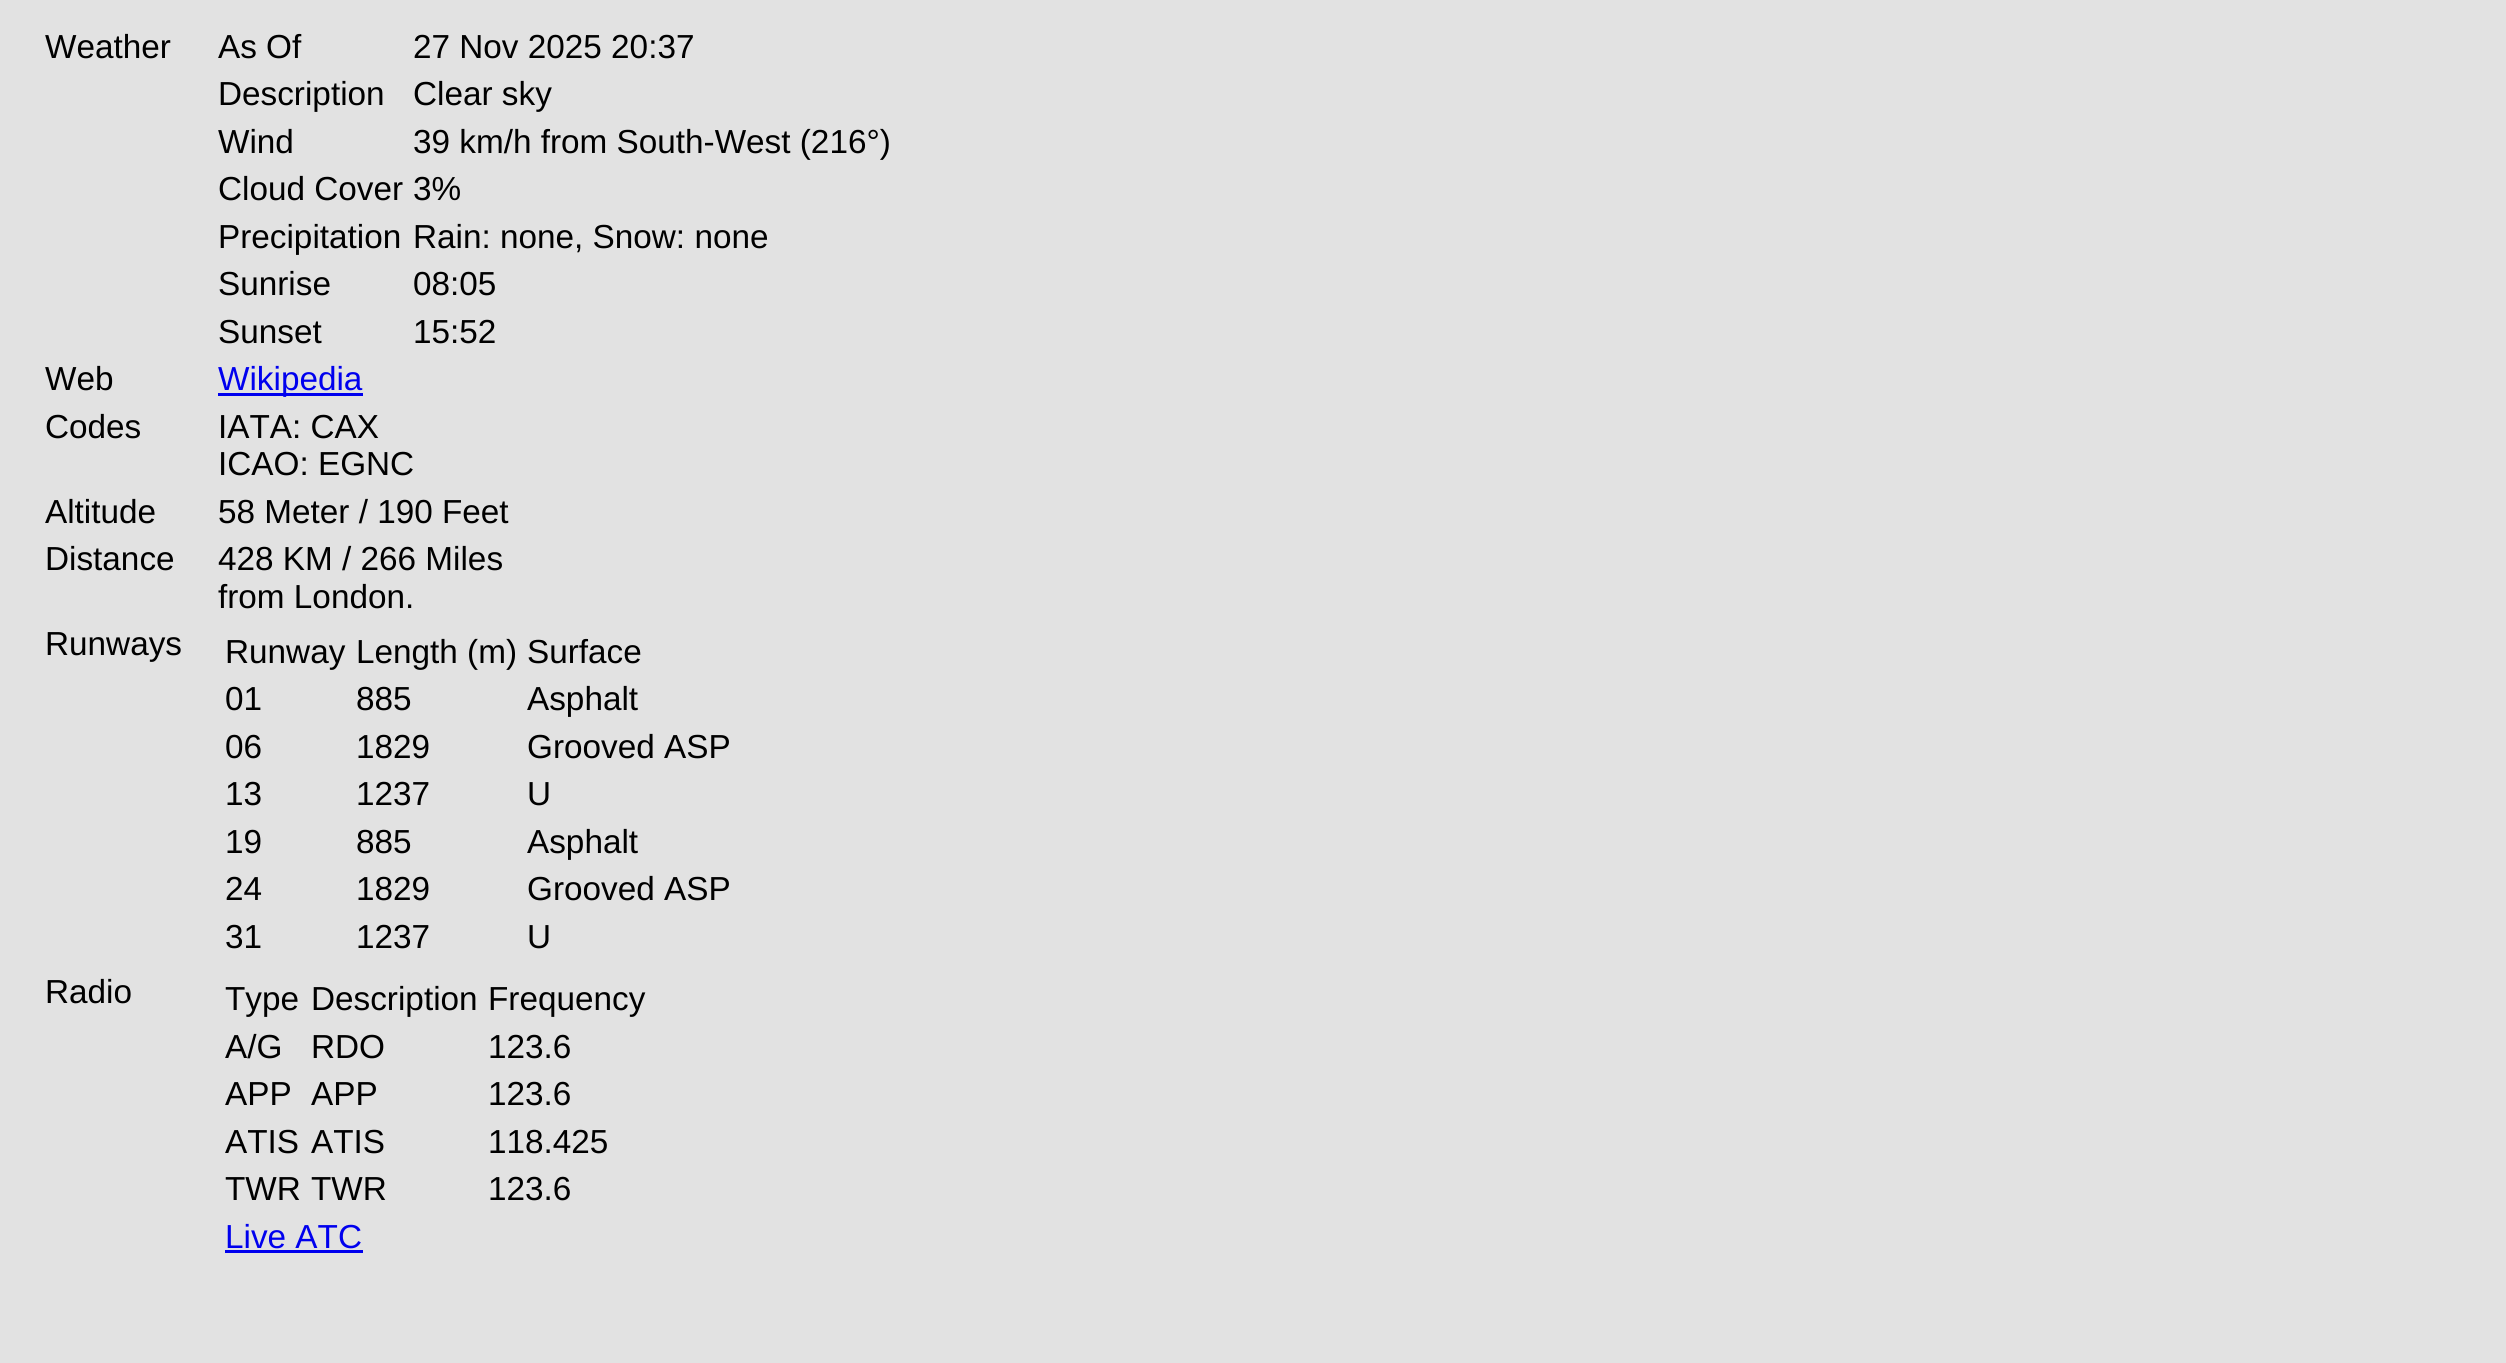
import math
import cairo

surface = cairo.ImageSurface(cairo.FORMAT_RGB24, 2506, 1363)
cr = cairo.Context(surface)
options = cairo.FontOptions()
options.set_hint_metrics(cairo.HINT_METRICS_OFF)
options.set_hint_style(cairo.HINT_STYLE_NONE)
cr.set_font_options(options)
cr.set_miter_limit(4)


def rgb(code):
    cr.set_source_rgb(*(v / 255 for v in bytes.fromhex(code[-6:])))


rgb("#e2e2e2")
cr.paint()
rgb("#0000ee")
cr.rectangle(218, 393, 145, 3)
cr.fill()
cr.rectangle(225, 1250, 138, 3)
cr.fill()
cr.select_font_face("Liberation Sans")
cr.set_font_size(33.3)
rgb("#000000")
for x, y, s in [
    (45, 58, "Weather"),
    (218, 58, "As Of"),
    (413, 58, "27 Nov 2025 20:37"),
    (218, 105, "Description"),
    (413, 105, "Clear sky"),
    (218, 153, "Wind"),
    (413, 153, "39 km/h from South-West (216°)"),
    (218, 200, "Cloud Cover"),
    (413, 200, "3%"),
    (218, 248, "Precipitation"),
    (413, 248, "Rain: none, Snow: none"),
    (218, 295, "Sunrise"),
    (413, 295, "08:05"),
    (218, 343, "Sunset"),
    (413, 343, "15:52"),
    (45, 390, "Web"),
]:
    cr.move_to(x, y)
    cr.show_text(s)
rgb("#0000ee")
cr.move_to(218, 390)
cr.show_text("Wikipedia")
rgb("#000000")
for x, y, s in [
    (45, 438, "Codes"),
    (218, 438, "IATA: CAX"),
    (218, 475, "ICAO: EGNC"),
    (45, 523, "Altitude"),
    (218, 523, "58 Meter / 190 Feet"),
    (45, 570, "Distance"),
    (218, 570, "428 KM / 266 Miles"),
    (218, 608, "from London."),
    (45, 655, "Runways"),
    (225, 663, "Runway"),
    (356, 663, "Length (m)"),
    (527, 663, "Surface"),
    (225, 710, "01"),
    (356, 710, "885"),
    (527, 710, "Asphalt"),
    (225, 758, "06"),
    (356, 758, "1829"),
    (527, 758, "Grooved ASP"),
    (225, 805, "13"),
    (356, 805, "1237"),
    (527, 805, "U"),
    (225, 853, "19"),
    (356, 853, "885"),
    (527, 853, "Asphalt"),
    (225, 900, "24"),
    (356, 900, "1829"),
    (527, 900, "Grooved ASP"),
    (225, 948, "31"),
    (356, 948, "1237"),
    (527, 948, "U"),
    (45, 1003, "Radio"),
    (225, 1010, "Type"),
    (311, 1010, "Description"),
    (488, 1010, "Frequency"),
    (225, 1058, "A/G"),
    (311, 1058, "RDO"),
    (488, 1058, "123.6"),
    (225, 1105, "APP"),
    (311, 1105, "APP"),
    (488, 1105, "123.6"),
    (225, 1153, "ATIS"),
    (311, 1153, "ATIS"),
    (488, 1153, "118.425"),
    (225, 1200, "TWR"),
    (311, 1200, "TWR"),
    (488, 1200, "123.6"),
]:
    cr.move_to(x, y)
    cr.show_text(s)
rgb("#0000ee")
cr.move_to(225, 1248)
cr.show_text("Live ATC")
surface.write_to_png("page.png")
